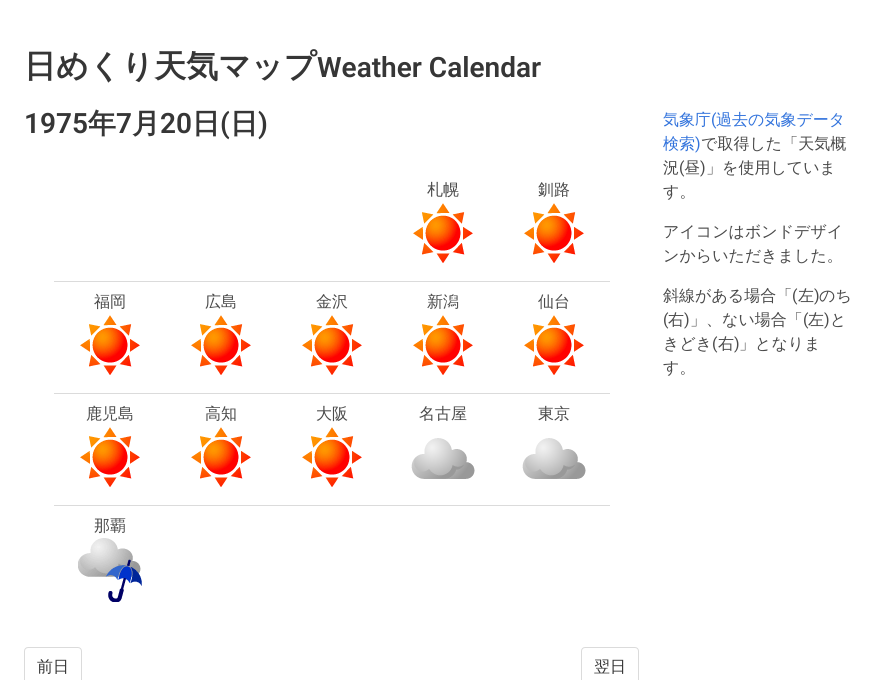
import math
import cairo

surface = cairo.ImageSurface(cairo.FORMAT_RGB24, 876, 680)
cr = cairo.Context(surface)
options = cairo.FontOptions()
options.set_hint_metrics(cairo.HINT_METRICS_OFF)
options.set_hint_style(cairo.HINT_STYLE_NONE)
cr.set_font_options(options)
cr.set_miter_limit(4)


def rgb(code):
    cr.set_source_rgb(*(v / 255 for v in bytes.fromhex(code[-6:])))


def rrect(x, y, w, h, r):
    cr.new_sub_path()
    for i, (u, v) in enumerate([(x + w - r, y + h - r), (x + r, y + h - r), (x + r, y + r), (x + w - r, y + r)]):
        cr.arc(u, v, r, i * math.pi / 2, (i + 1) * math.pi / 2)
    cr.close_path()


def image(path, x, y, w, h):
    cr.save()
    cr.set_source_surface(cairo.ImageSurface.create_from_png(path), x, y)
    cr.rectangle(x, y, w, h)
    cr.fill()
    cr.restore()


rgb("#ffffff")
cr.paint()
image("img/1.png", 413, 203, 60, 60)
rgb("#dbdbdb")
cr.rectangle(54, 281, 556, 1)
cr.fill()
image("img/1.png", 524, 203, 60, 60)
image("img/1.png", 80, 315, 60, 60)
image("img/1.png", 191, 315, 60, 60)
image("img/1.png", 302, 315, 60, 60)
image("img/1.png", 413, 315, 60, 60)
cr.rectangle(54, 393, 556, 1)
cr.fill()
image("img/1.png", 524, 315, 60, 60)
image("img/1.png", 80, 427, 60, 60)
image("img/1.png", 191, 427, 60, 60)
image("img/1.png", 302, 427, 60, 60)
image("img/2.png", 411, 438, 64, 41)
cr.rectangle(54, 505, 556, 1)
cr.fill()
image("img/2.png", 522, 438, 64, 41)
image("img/3.png", 78, 538, 64, 64)
rrect(24.5, 647.5, 57, 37, 3.5)
cr.set_line_width(1)
cr.stroke()
rrect(581.5, 647.5, 57, 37, 3.5)
cr.stroke()
cr.select_font_face("WenQuanYi Zen Hei", cairo.FONT_SLANT_NORMAL, cairo.FONT_WEIGHT_BOLD)
cr.set_font_size(32)
rgb("#363636")
cr.move_to(24, 77)
cr.show_text("日めくり天気マップ")
cr.select_font_face("Roboto SemiBold")
cr.set_font_size(28)
cr.move_to(317, 77)
cr.show_text("Weather Calendar")
cr.move_to(24, 133)
cr.show_text("1975")
cr.select_font_face("WenQuanYi Zen Hei", cairo.FONT_SLANT_NORMAL, cairo.FONT_WEIGHT_BOLD)
cr.move_to(88, 133)
cr.show_text("年")
cr.select_font_face("Roboto SemiBold")
cr.move_to(116, 133)
cr.show_text("7")
cr.select_font_face("WenQuanYi Zen Hei", cairo.FONT_SLANT_NORMAL, cairo.FONT_WEIGHT_BOLD)
cr.move_to(132, 133)
cr.show_text("月")
cr.select_font_face("Roboto SemiBold")
cr.move_to(160, 133)
cr.show_text("20")
cr.select_font_face("WenQuanYi Zen Hei", cairo.FONT_SLANT_NORMAL, cairo.FONT_WEIGHT_BOLD)
cr.move_to(192, 133)
cr.show_text("日")
cr.select_font_face("Roboto SemiBold")
cr.move_to(220, 133)
cr.show_text("(")
cr.select_font_face("WenQuanYi Zen Hei", cairo.FONT_SLANT_NORMAL, cairo.FONT_WEIGHT_BOLD)
cr.move_to(230, 133)
cr.show_text("日")
cr.select_font_face("Roboto SemiBold")
cr.move_to(258, 133)
cr.show_text(")")
cr.select_font_face("WenQuanYi Zen Hei Medium")
cr.set_font_size(16)
rgb("#4a4a4a")
for x, y, s in [
    (427, 195, "札幌"),
    (538, 195, "釧路"),
    (94, 307, "福岡"),
    (205, 307, "広島"),
    (316, 307, "金沢"),
    (427, 307, "新潟"),
    (538, 307, "仙台"),
    (86, 419, "鹿児島"),
    (205, 419, "高知"),
    (316, 419, "大阪"),
    (419, 419, "名古屋"),
    (538, 419, "東京"),
    (94, 531, "那覇"),
]:
    cr.move_to(x, y)
    cr.show_text(s)
rgb("#363636")
cr.move_to(37, 672)
cr.show_text("前日")
cr.move_to(594, 672)
cr.show_text("翌日")
rgb("#3273dc")
cr.move_to(663, 125)
cr.show_text("気象庁")
cr.select_font_face("Roboto")
cr.move_to(711, 125)
cr.show_text("(")
cr.select_font_face("WenQuanYi Zen Hei Medium")
cr.move_to(716, 125)
cr.show_text("過去の気象データ")
cr.move_to(663, 149)
cr.show_text("検索")
cr.select_font_face("Roboto")
cr.move_to(695, 149)
cr.show_text(")")
cr.select_font_face("WenQuanYi Zen Hei Medium")
rgb("#4a4a4a")
cr.move_to(701, 149)
cr.show_text("で取得した「天気概")
cr.move_to(663, 173)
cr.show_text("況")
cr.select_font_face("Roboto")
cr.move_to(679, 173)
cr.show_text("(")
cr.select_font_face("WenQuanYi Zen Hei Medium")
cr.move_to(684, 173)
cr.show_text("昼")
cr.select_font_face("Roboto")
cr.move_to(700, 173)
cr.show_text(")")
cr.select_font_face("WenQuanYi Zen Hei Medium")
for x, y, s in [
    (706, 173, "」を使用していま"),
    (663, 197, "す。"),
    (663, 237, "アイコンはボンドデザイ"),
    (663, 261, "ンからいただきました。"),
    (663, 301, "斜線がある場合「"),
]:
    cr.move_to(x, y)
    cr.show_text(s)
cr.select_font_face("Roboto")
cr.move_to(792, 301)
cr.show_text("(")
cr.select_font_face("WenQuanYi Zen Hei Medium")
cr.move_to(798, 301)
cr.show_text("左")
cr.select_font_face("Roboto")
cr.move_to(814, 301)
cr.show_text(")")
cr.select_font_face("WenQuanYi Zen Hei Medium")
cr.move_to(819, 301)
cr.show_text("のち")
cr.select_font_face("Roboto")
cr.move_to(663, 325)
cr.show_text("(")
cr.select_font_face("WenQuanYi Zen Hei Medium")
cr.move_to(668, 325)
cr.show_text("右")
cr.select_font_face("Roboto")
cr.move_to(684, 325)
cr.show_text(")")
cr.select_font_face("WenQuanYi Zen Hei Medium")
cr.move_to(690, 325)
cr.show_text("」、ない場合「")
cr.select_font_face("Roboto")
cr.move_to(803, 325)
cr.show_text("(")
cr.select_font_face("WenQuanYi Zen Hei Medium")
cr.move_to(808, 325)
cr.show_text("左")
cr.select_font_face("Roboto")
cr.move_to(824, 325)
cr.show_text(")")
cr.select_font_face("WenQuanYi Zen Hei Medium")
cr.move_to(830, 325)
cr.show_text("と")
cr.move_to(663, 349)
cr.show_text("きどき")
cr.select_font_face("Roboto")
cr.move_to(712, 349)
cr.show_text("(")
cr.select_font_face("WenQuanYi Zen Hei Medium")
cr.move_to(718, 349)
cr.show_text("右")
cr.select_font_face("Roboto")
cr.move_to(734, 349)
cr.show_text(")")
cr.select_font_face("WenQuanYi Zen Hei Medium")
cr.move_to(739, 349)
cr.show_text("」となりま")
cr.move_to(663, 373)
cr.show_text("す。")
surface.write_to_png("page.png")
